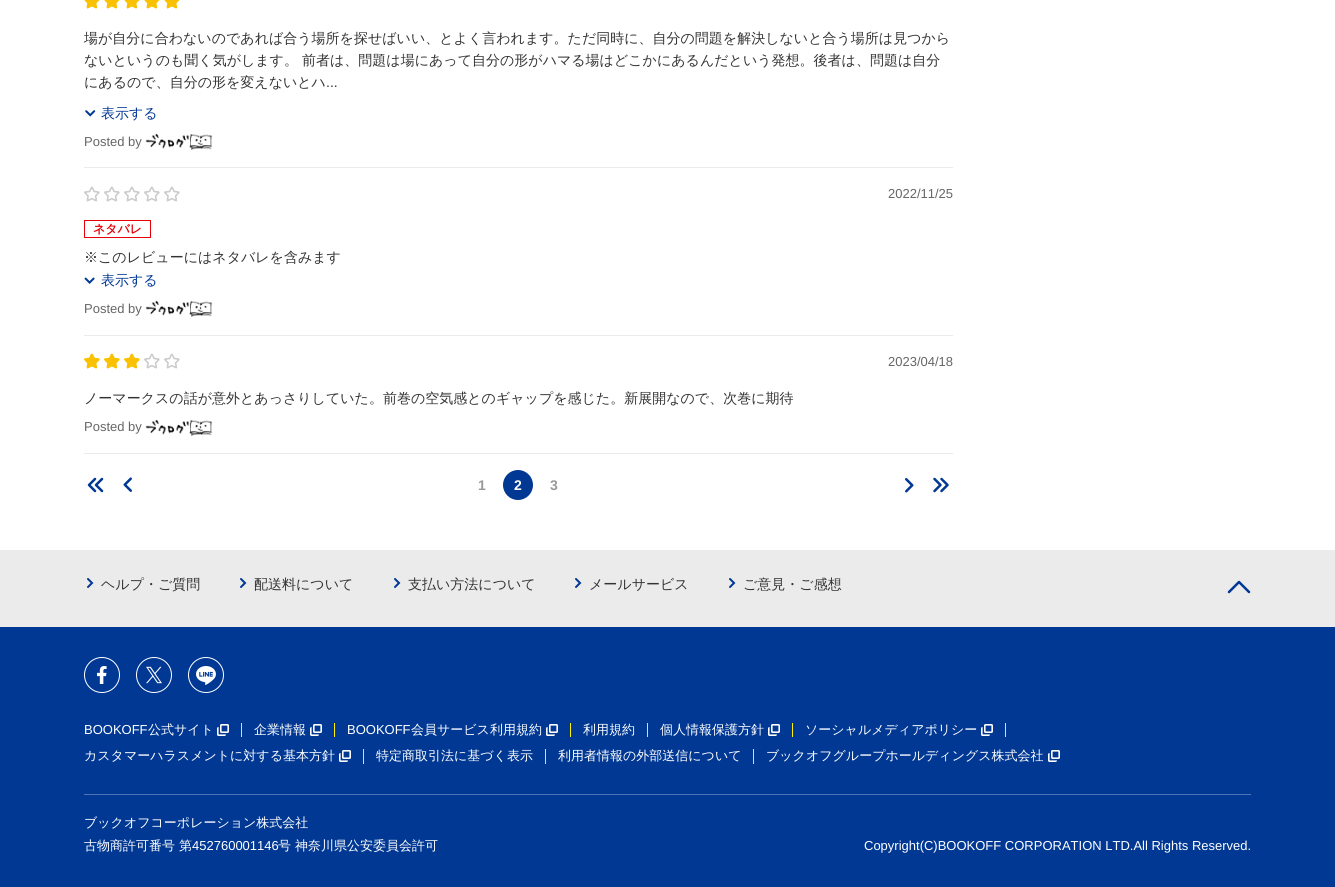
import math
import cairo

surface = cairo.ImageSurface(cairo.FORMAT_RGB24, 1335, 887)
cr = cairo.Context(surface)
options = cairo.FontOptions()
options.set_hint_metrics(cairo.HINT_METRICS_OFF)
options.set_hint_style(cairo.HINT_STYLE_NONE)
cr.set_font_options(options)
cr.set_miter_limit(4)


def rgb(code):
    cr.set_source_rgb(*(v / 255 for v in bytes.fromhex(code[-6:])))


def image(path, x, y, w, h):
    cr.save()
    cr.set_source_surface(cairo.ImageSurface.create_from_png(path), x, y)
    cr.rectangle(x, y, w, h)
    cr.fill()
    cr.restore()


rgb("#ffffff")
cr.paint()
rgb("#ebebeb")
cr.rectangle(84, 167, 869, 1)
cr.fill()
image("img/1.png", 84, 0, 16, 9)
image("img/1.png", 104, 0, 16, 9)
image("img/1.png", 124, 0, 16, 9)
image("img/1.png", 144, 0, 16, 9)
image("img/1.png", 164, 0, 16, 9)
image("img/2.png", 85, 110, 11, 7)
image("img/3.png", 145, 133, 68, 17)
cr.rectangle(84, 335, 869, 1)
cr.fill()
image("img/4.png", 84, 186, 16, 16)
image("img/4.png", 104, 186, 16, 16)
image("img/4.png", 124, 186, 16, 16)
image("img/4.png", 144, 186, 16, 16)
image("img/4.png", 164, 186, 16, 16)
cr.rectangle(84.5, 220.5, 66, 17)
rgb("#e60009")
cr.set_line_width(1)
cr.stroke()
image("img/5.png", 84, 277, 11, 7)
image("img/3.png", 145, 300, 68, 17)
rgb("#ebebeb")
cr.rectangle(84, 453, 869, 1)
cr.fill()
image("img/6.png", 84, 353, 16, 16)
image("img/6.png", 104, 353, 16, 16)
image("img/6.png", 124, 353, 16, 16)
image("img/4.png", 144, 353, 16, 16)
image("img/4.png", 164, 353, 16, 16)
image("img/3.png", 145, 419, 68, 17)
cr.new_path()
cr.move_to(102, 491)
cr.line_to(96, 485)
cr.line_to(102, 479)
cr.move_to(95, 491)
cr.line_to(89, 485)
cr.line_to(95, 479)
rgb("#003894")
cr.set_line_width(2.5)
cr.set_line_cap(cairo.LINE_CAP_ROUND)
cr.set_line_join(cairo.LINE_JOIN_ROUND)
cr.stroke()
image("img/7.png", 123, 477, 9, 15)
cr.arc(518, 485, 15, 0, 2 * math.pi)
cr.fill()
image("img/8.png", 905, 478, 9, 15)
cr.new_path()
cr.move_to(934.5, 479)
cr.line_to(940.5, 485)
cr.line_to(934.5, 491)
cr.move_to(941.5, 479)
cr.line_to(947.5, 485)
cr.line_to(941.5, 491)
cr.stroke()
rgb("#ebebeb")
cr.rectangle(0, 550, 1335, 77)
cr.fill()
image("img/9.png", 87, 578, 7, 10)
image("img/9.png", 240, 578, 7, 10)
image("img/9.png", 394, 578, 7, 10)
image("img/9.png", 575, 578, 7, 10)
image("img/9.png", 729, 578, 7, 10)
cr.new_path()
cr.move_to(1229, 592)
cr.line_to(1239, 582)
cr.line_to(1249, 592)
rgb("#003894")
cr.stroke()
cr.rectangle(0, 627, 1335, 260)
cr.fill()
image("img/10.png", 84, 657, 36, 36)
image("img/11.png", 136, 657, 36, 36)
image("img/12.png", 188, 657, 36, 36)
rgb("#fff100")
cr.rectangle(241, 723, 1, 14)
cr.fill()
image("img/13.png", 217, 724, 12, 12)
cr.rectangle(334, 723, 1, 14)
cr.fill()
image("img/13.png", 310, 724, 12, 12)
cr.rectangle(570, 723, 1, 14)
cr.fill()
image("img/13.png", 546, 724, 12, 12)
cr.rectangle(647, 723, 1, 14)
cr.fill()
cr.rectangle(792, 723, 1, 14)
cr.fill()
image("img/13.png", 768, 724, 12, 12)
cr.rectangle(1005, 723, 1, 14)
cr.fill()
image("img/13.png", 981, 724, 12, 12)
cr.rectangle(363, 749, 1, 15)
cr.fill()
image("img/13.png", 339, 750, 12, 12)
cr.rectangle(545, 749, 1, 15)
cr.fill()
cr.rectangle(753, 749, 1, 15)
cr.fill()
image("img/13.png", 1048, 750, 12, 12)
rgb("#4d74b4")
cr.rectangle(84, 794, 1167, 1)
cr.fill()
cr.select_font_face("WenQuanYi Zen Hei Medium")
cr.set_font_size(14)
rgb("#333333")
for x, y, s in [
    (84, 43, "場が自分に合わないのであれば合う場所を探せばいい、とよく言われます。ただ同時に、自分の問題を解決しないと合う場所は見つから"),
    (84, 65, "ないというのも聞く気がします。"),
    (302, 65, "前者は、問題は場にあって自分の形がハマる場はどこかにあるんだという発想。後者は、問題は自分"),
    (84, 87, "にあるので、自分の形を変えないとハ"),
]:
    cr.move_to(x, y)
    cr.show_text(s)
cr.select_font_face("Liberation Sans")
cr.move_to(326, 87)
cr.show_text("...")
cr.select_font_face("WenQuanYi Zen Hei Medium")
rgb("#003894")
cr.move_to(101, 118)
cr.show_text("表示する")
cr.select_font_face("Liberation Sans")
cr.set_font_size(13)
rgb("#666666")
cr.move_to(84, 146)
cr.show_text("Posted by")
cr.move_to(888, 198)
cr.show_text("2022/11/25")
cr.select_font_face("WenQuanYi Zen Hei", cairo.FONT_SLANT_NORMAL, cairo.FONT_WEIGHT_BOLD)
cr.set_font_size(12)
rgb("#e60009")
cr.move_to(93, 233)
cr.show_text("ネタバレ")
cr.select_font_face("WenQuanYi Zen Hei Medium")
cr.set_font_size(14)
rgb("#333333")
cr.move_to(84, 262)
cr.show_text("※このレビューにはネタバレを含みます")
rgb("#003894")
cr.move_to(101, 285)
cr.show_text("表示する")
cr.select_font_face("Liberation Sans")
cr.set_font_size(13)
rgb("#666666")
cr.move_to(84, 313)
cr.show_text("Posted by")
cr.move_to(888, 366)
cr.show_text("2023/04/18")
cr.select_font_face("WenQuanYi Zen Hei Medium")
cr.set_font_size(14)
rgb("#333333")
cr.move_to(84, 403)
cr.show_text("ノーマークスの話が意外とあっさりしていた。前巻の空気感とのギャップを感じた。新展開なので、次巻に期待")
cr.select_font_face("Liberation Sans")
cr.set_font_size(13)
rgb("#666666")
cr.move_to(84, 431)
cr.show_text("Posted by")
cr.select_font_face("Liberation Sans", cairo.FONT_SLANT_NORMAL, cairo.FONT_WEIGHT_BOLD)
cr.set_font_size(14)
rgb("#999999")
cr.move_to(478, 490)
cr.show_text("1")
rgb("#ffffff")
cr.move_to(514, 490)
cr.show_text("2")
rgb("#999999")
cr.move_to(550, 490)
cr.show_text("3")
cr.select_font_face("WenQuanYi Zen Hei Medium")
rgb("#333333")
for x, y, s in [
    (101, 589, "ヘルプ・ご質問"),
    (254, 589, "配送料について"),
    (408, 589, "支払い方法について"),
    (589, 589, "メールサービス"),
    (743, 589, "ご意見・ご感想"),
]:
    cr.move_to(x, y)
    cr.show_text(s)
cr.select_font_face("Liberation Sans")
cr.set_font_size(13)
rgb("#ffffff")
cr.move_to(84, 734)
cr.show_text("BOOKOFF")
cr.select_font_face("WenQuanYi Zen Hei Medium")
cr.move_to(148, 734)
cr.show_text("公式サイト")
cr.move_to(254, 734)
cr.show_text("企業情報")
cr.select_font_face("Liberation Sans")
cr.move_to(347, 734)
cr.show_text("BOOKOFF")
cr.select_font_face("WenQuanYi Zen Hei Medium")
for x, y, s in [
    (411, 734, "会員サービス利用規約"),
    (583, 734, "利用規約"),
    (660, 734, "個人情報保護方針"),
    (805, 734, "ソーシャルメディアポリシー"),
    (84, 760, "カスタマーハラスメントに対する基本方針"),
    (376, 760, "特定商取引法に基づく表示"),
    (558, 760, "利用者情報の外部送信について"),
    (766, 760, "ブックオフグループホールディングス株式会社"),
    (84, 827, "ブックオフコーポレーション株式会社"),
    (84, 850, "古物商許可番号 第"),
]:
    cr.move_to(x, y)
    cr.show_text(s)
cr.select_font_face("Liberation Sans")
cr.move_to(192, 850)
cr.show_text("452760001146")
cr.select_font_face("WenQuanYi Zen Hei Medium")
cr.move_to(278, 850)
cr.show_text("号 神奈川県公安委員会許可")
cr.select_font_face("Liberation Sans")
cr.move_to(864, 850)
cr.show_text("Copyright(C)BOOKOFF CORPORATION LTD.All Rights Reserved.")
surface.write_to_png("page.png")
